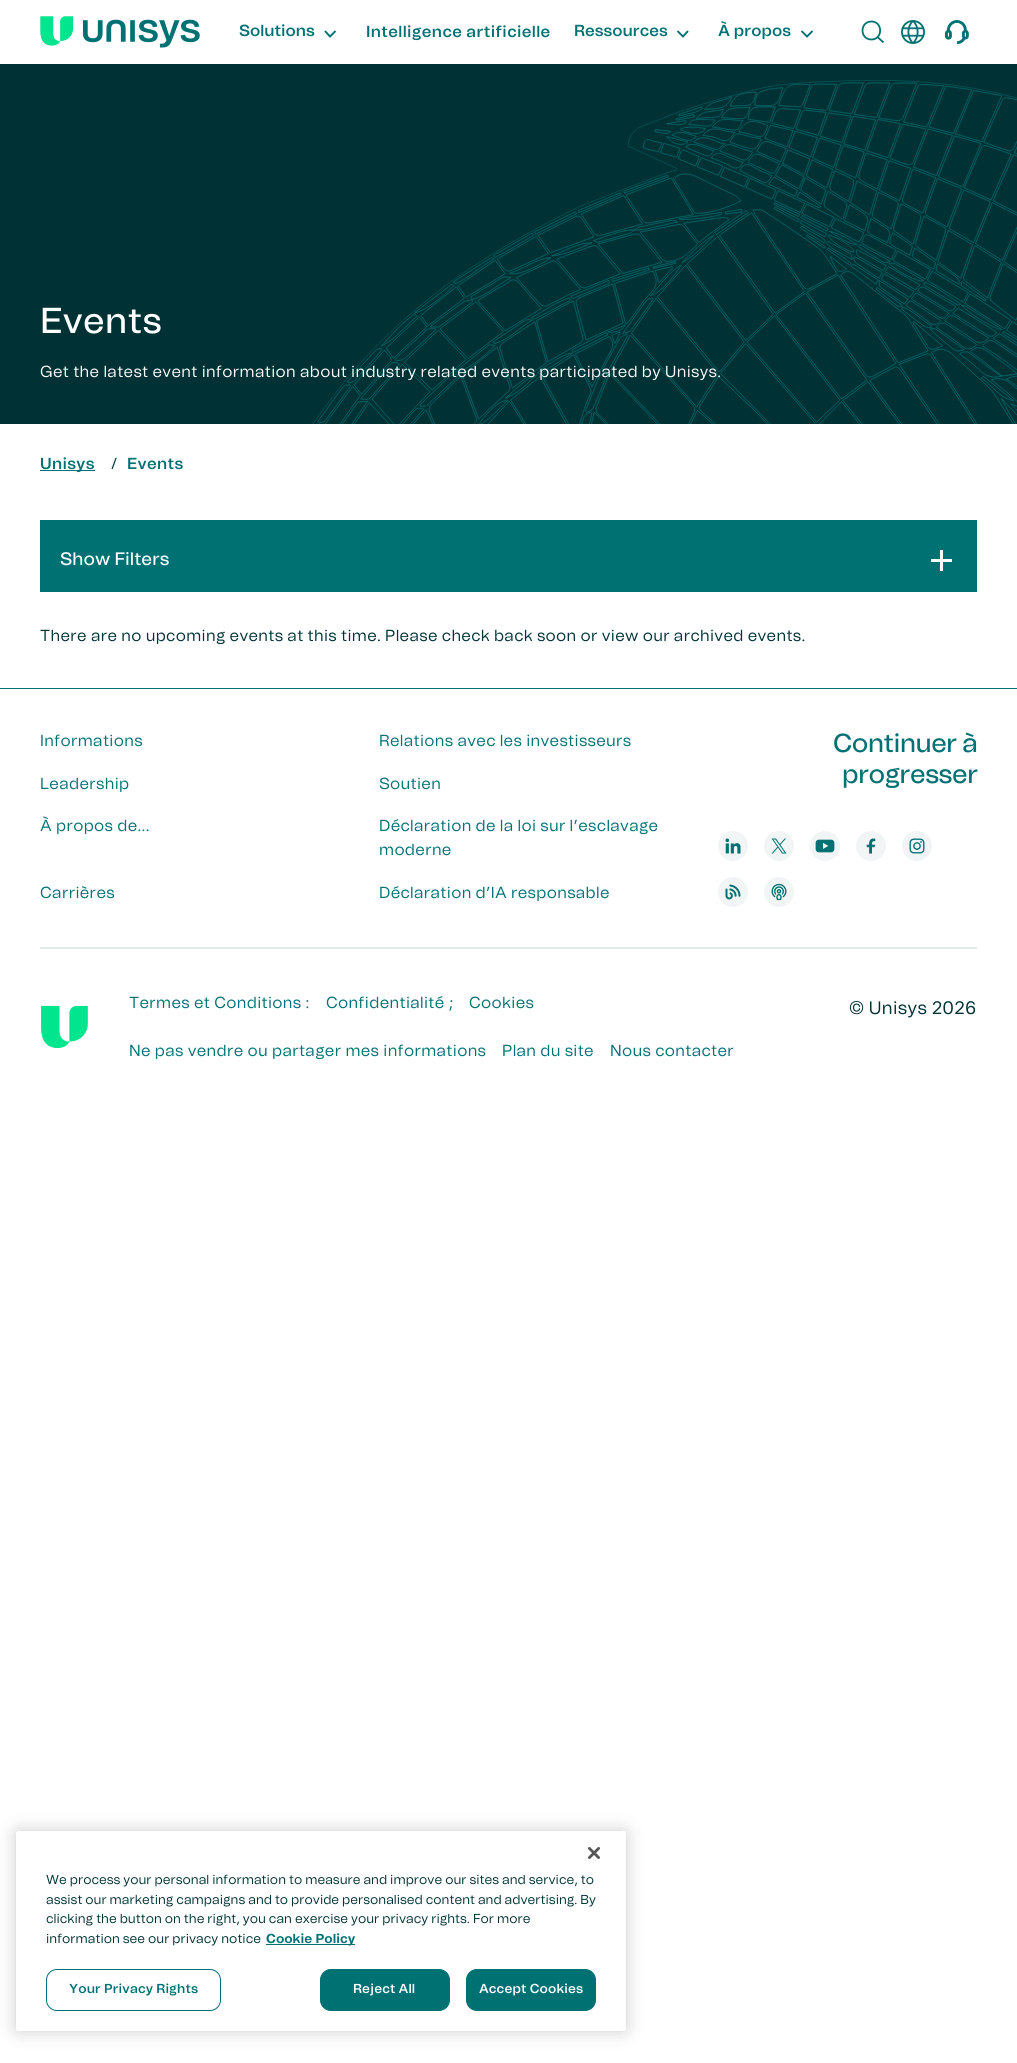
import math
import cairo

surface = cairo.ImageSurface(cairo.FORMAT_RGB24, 1017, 2063)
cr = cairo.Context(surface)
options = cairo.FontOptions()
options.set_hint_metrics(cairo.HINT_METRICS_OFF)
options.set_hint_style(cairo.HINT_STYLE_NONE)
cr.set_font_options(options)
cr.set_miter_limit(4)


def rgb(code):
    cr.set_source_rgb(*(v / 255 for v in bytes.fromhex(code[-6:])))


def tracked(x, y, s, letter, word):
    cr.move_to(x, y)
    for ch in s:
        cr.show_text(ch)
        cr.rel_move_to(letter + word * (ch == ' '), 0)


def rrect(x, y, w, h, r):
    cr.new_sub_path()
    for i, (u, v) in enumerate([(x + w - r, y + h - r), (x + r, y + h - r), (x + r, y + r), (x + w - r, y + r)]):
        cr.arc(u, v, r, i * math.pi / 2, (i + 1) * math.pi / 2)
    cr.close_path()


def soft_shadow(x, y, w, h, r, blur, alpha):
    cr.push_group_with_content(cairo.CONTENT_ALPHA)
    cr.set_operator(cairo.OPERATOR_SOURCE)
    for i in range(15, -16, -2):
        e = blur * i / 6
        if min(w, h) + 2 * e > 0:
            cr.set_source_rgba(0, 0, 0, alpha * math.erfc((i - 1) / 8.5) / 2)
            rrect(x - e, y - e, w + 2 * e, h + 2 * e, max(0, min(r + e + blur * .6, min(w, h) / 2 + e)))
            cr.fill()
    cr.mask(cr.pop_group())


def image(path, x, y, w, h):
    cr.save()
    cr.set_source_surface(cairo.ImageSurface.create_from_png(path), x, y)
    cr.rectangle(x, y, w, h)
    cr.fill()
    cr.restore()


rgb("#ffffff")
cr.paint()
image("img/1.png", 40, 16, 160, 32)
cr.new_path()
cr.move_to(325, 31)
cr.line_to(330, 36.5)
cr.line_to(335.5, 31)
rgb("#007173")
cr.set_line_width(1.9)
cr.stroke()
cr.new_path()
cr.move_to(677.5, 31)
cr.line_to(683, 36.5)
cr.line_to(688, 31)
cr.stroke()
cr.new_path()
cr.move_to(801.5, 31)
cr.line_to(807, 36.5)
cr.line_to(812.5, 31)
cr.stroke()
cr.new_path()
cr.move_to(871.5, 39.5)
cr.curve_to(883, 39.5, 883, 21.5, 871.5, 21.5)
cr.curve_to(859.5, 21.5, 859.5, 39.5, 871.5, 39.5)
cr.close_path()
cr.move_to(877.5, 37)
cr.line_to(883.5, 42.5)
cr.set_line_width(1.8)
cr.stroke()
image("img/2.png", 901, 20, 24, 24)
image("img/3.png", 945, 20, 24, 24)
rgb("#003134")
cr.rectangle(0, 64, 1017, 360)
cr.fill()
image("img/4.png", 312, 80, 705, 344)
for x, y, w, h, color in [
    (40, 470, 55, 1, "#007173"),
    (40, 520, 937, 72, "#007173"),
    (931, 559, 21, 3, "#ffffff"),
    (940, 550, 3, 21, "#ffffff"),
    (0, 688, 1017, 1, "#007173"),
]:
    rgb(color)
    cr.rectangle(x, y, w, h)
    cr.fill()
rgb("#f2f5f5")
cr.arc(733, 846, 15, 0, 2 * math.pi)
cr.fill()
image("img/5.png", 725, 838, 16, 16)
cr.arc(779, 846, 15, 0, 2 * math.pi)
cr.fill()
image("img/6.png", 771, 838, 16, 16)
cr.arc(825, 846, 15, 0, 2 * math.pi)
cr.fill()
image("img/7.png", 815, 839, 20, 14)
cr.arc(871, 846, 15, 0, 2 * math.pi)
cr.fill()
image("img/8.png", 866, 838, 10, 16)
cr.arc(917, 846, 15, 0, 2 * math.pi)
cr.fill()
image("img/9.png", 909, 838, 16, 16)
cr.arc(733, 892, 15, 0, 2 * math.pi)
cr.fill()
image("img/10.png", 725, 884, 16, 16)
cr.arc(779, 892, 15, 0, 2 * math.pi)
cr.fill()
image("img/11.png", 771, 883, 16, 18)
rgb("#e5eaeb")
cr.rectangle(40, 947, 937, 2)
cr.fill()
image("img/12.png", 41, 1005, 47, 44)
rgb("#000000")
soft_shadow(16, 1831, 610, 200, 2.5, 9, 0.2)
rgb("#ffffff")
rrect(16, 1831, 610, 200, 2.5)
cr.fill()
image("img/13.png", 588, 1847, 12, 12)
rgb("#007173")
cr.rectangle(266, 1944, 89, 1)
cr.fill()
rrect(46.5, 1969.5, 174, 41, 10.5)
cr.set_line_width(1)
cr.stroke()
rrect(320.5, 1969.5, 129, 41, 10.5)
cr.fill_preserve()
cr.stroke()
rrect(466.5, 1969.5, 129, 41, 10.5)
cr.fill_preserve()
cr.stroke()
cr.select_font_face("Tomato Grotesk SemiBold")
cr.set_font_size(16)
cr.move_to(239, 36)
cr.show_text("Solutions")
tracked(366, 37, "Intelligence artificielle", 0.32, 0)
cr.move_to(574, 36)
cr.show_text("Ressources")
cr.move_to(718, 36)
cr.show_text("À propos")
cr.select_font_face("Tomato Grotesk Medium")
cr.set_font_size(36)
rgb("#ffffff")
tracked(40, 333, "Events", 0.32, 0)
cr.select_font_face("Tomato Grotesk")
cr.set_font_size(16)
tracked(40, 377, "Get the latest event information about industry related events participated by Unisys.", 0.32, 0)
cr.select_font_face("Tomato Grotesk SemiBold")
rgb("#007173")
tracked(40, 469, "Unisys", 0.32, 0)
cr.select_font_face("Tomato Grotesk")
rgb("#003134")
tracked(111, 469, "/", 0.32, 0)
cr.select_font_face("Tomato Grotesk SemiBold")
rgb("#007173")
tracked(127, 469, "Events", 0.32, 0)
cr.select_font_face("Tomato Grotesk Medium")
cr.set_font_size(18)
rgb("#ffffff")
cr.move_to(60, 565)
cr.show_text("Show Filters")
cr.select_font_face("Tomato Grotesk")
cr.set_font_size(16)
rgb("#003134")
tracked(40, 641, "There are no upcoming events at this time. Please check back soon or view our archived events.", 0.32, 0)
rgb("#007173")
for x, y, s in [
    (40, 746, "Informations"),
    (379, 746, "Relations avec les investisseurs"),
    (40, 789, "Leadership"),
    (379, 789, "Soutien"),
    (40, 831, "À propos de..."),
    (379, 831, "Déclaration de la loi sur l’esclavage"),
    (379, 855, "moderne"),
    (40, 898, "Carrières"),
    (379, 898, "Déclaration d’IA responsable"),
]:
    tracked(x, y, s, 0.32, 0)
cr.select_font_face("Tomato Grotesk Medium")
cr.set_font_size(26)
tracked(833, 752, "Continuer à", -0.5, 0)
tracked(842, 783, "progresser", -0.5, 0)
cr.select_font_face("Tomato Grotesk")
cr.set_font_size(16)
for x, y, s in [
    (129, 1008, "Termes et Conditions :"),
    (326, 1008, "Confidentialité ;"),
    (469, 1008, "Cookies"),
    (129, 1056, "Ne pas vendre ou partager mes informations"),
    (502, 1056, "Plan du site"),
    (610, 1056, "Nous contacter"),
]:
    tracked(x, y, s, 0.32, 0)
cr.set_font_size(18)
rgb("#003134")
tracked(849, 1014, "© Unisys 2026", 0.32, 0)
cr.set_font_size(13)
for x, y, s in [
    (46, 1884, "We process your personal information to measure and improve our sites and service, to"),
    (46, 1904, "assist our marketing campaigns and to provide personalised content and advertising. By"),
    (46, 1923, "clicking the button on the right, you can exercise your privacy rights. For more"),
    (46, 1943, "information see our privacy notice"),
]:
    cr.move_to(x, y)
    cr.show_text(s)
cr.select_font_face("Tomato Grotesk", cairo.FONT_SLANT_NORMAL, cairo.FONT_WEIGHT_BOLD)
rgb("#007173")
cr.move_to(266, 1943)
cr.show_text("Cookie Policy")
cr.select_font_face("Tomato Grotesk SemiBold")
tracked(69, 1993, "Your Privacy Rights", 0.1, 0)
rgb("#ffffff")
tracked(353, 1993, "Reject All", 0.1, 0)
tracked(479, 1993, "Accept Cookies", 0.1, 0)
surface.write_to_png("page.png")
